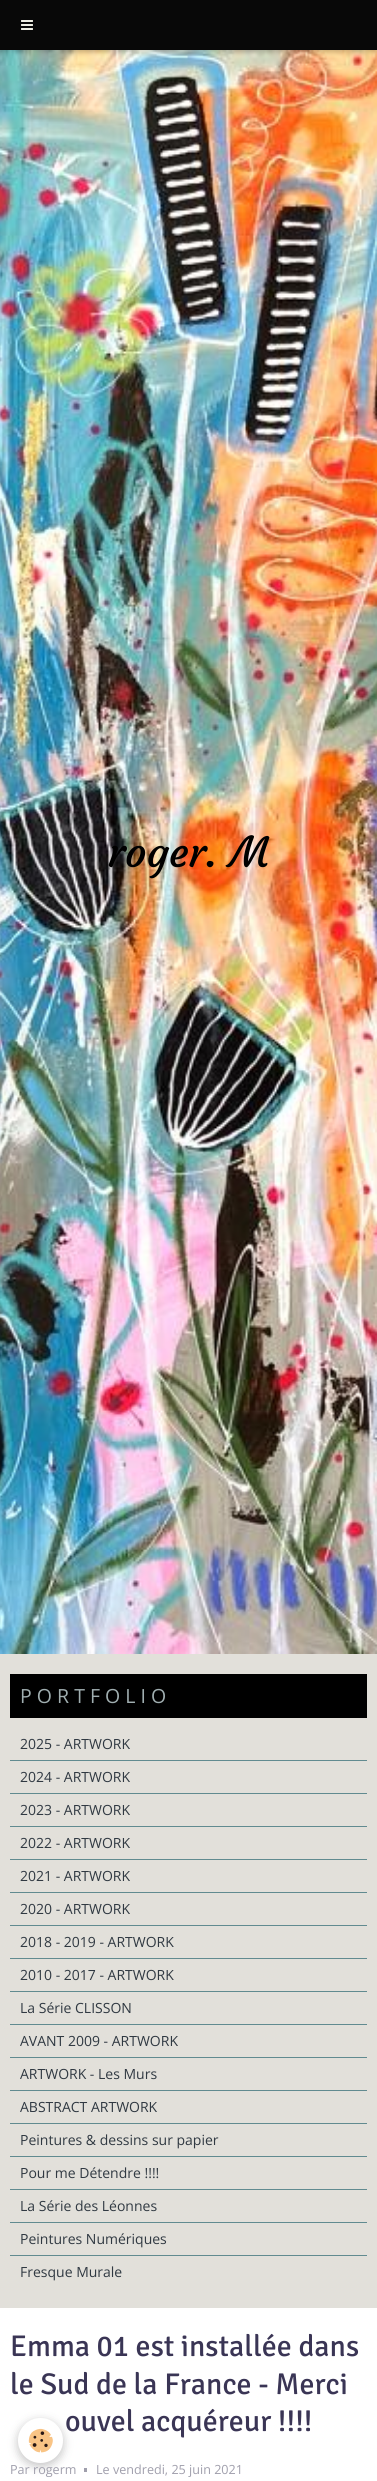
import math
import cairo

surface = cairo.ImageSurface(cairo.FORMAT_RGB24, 377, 2481)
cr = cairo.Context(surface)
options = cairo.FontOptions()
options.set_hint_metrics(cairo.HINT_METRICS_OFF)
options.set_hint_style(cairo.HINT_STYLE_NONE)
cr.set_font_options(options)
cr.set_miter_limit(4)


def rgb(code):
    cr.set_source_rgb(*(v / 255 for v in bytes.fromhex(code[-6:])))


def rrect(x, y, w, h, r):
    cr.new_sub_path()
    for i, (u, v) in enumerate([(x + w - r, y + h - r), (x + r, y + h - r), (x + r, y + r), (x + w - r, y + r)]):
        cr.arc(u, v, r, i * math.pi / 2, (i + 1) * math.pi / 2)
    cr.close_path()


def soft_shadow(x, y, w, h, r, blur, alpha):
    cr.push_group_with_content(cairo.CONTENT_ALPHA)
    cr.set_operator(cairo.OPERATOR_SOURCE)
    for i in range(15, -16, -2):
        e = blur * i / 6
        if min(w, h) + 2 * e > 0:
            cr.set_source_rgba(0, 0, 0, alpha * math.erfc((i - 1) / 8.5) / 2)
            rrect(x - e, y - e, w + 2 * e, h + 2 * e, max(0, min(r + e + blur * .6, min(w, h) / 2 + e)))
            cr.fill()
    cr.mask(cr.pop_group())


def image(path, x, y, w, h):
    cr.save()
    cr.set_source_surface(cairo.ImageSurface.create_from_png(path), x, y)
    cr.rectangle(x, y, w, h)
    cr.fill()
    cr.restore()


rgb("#ffffff")
cr.paint()
image("img/2.png", 0, 50, 377, 1604)
rgb("#000000")
soft_shadow(0, 2, 377, 50, 0, 2.5, 0.2)
rgb("#080808")
cr.rectangle(0, 0, 377, 50)
cr.fill()
image("img/1.png", 21, 20, 12, 10)
for x, y, w, h, color in [
    (0, 1654, 377, 654, "#e2e0da"),
    (10, 1674, 357, 44, "#000000"),
    (10, 1760, 357, 1, "#618b90"),
    (10, 1793, 357, 1, "#618b90"),
    (10, 1826, 357, 1, "#618b90"),
    (10, 1859, 357, 1, "#618b90"),
    (10, 1892, 357, 1, "#618b90"),
    (10, 1925, 357, 1, "#618b90"),
    (10, 1958, 357, 1, "#618b90"),
    (10, 1991, 357, 1, "#618b90"),
    (10, 2024, 357, 1, "#618b90"),
    (10, 2057, 357, 1, "#618b90"),
    (10, 2090, 357, 1, "#618b90"),
    (10, 2123, 357, 1, "#618b90"),
    (10, 2156, 357, 1, "#618b90"),
    (10, 2189, 357, 1, "#618b90"),
    (10, 2222, 357, 1, "#618b90"),
    (10, 2255, 357, 1, "#618b90"),
    (84, 2468, 3, 4, "#a09fac"),
]:
    rgb(color)
    cr.rectangle(x, y, w, h)
    cr.fill()
rgb("#000000")
soft_shadow(18, 2421, 45, 45, 22.5, 5, 0.24)
rgb("#ffffff")
cr.arc(40.5, 2440.5, 22.5, 0, 2 * math.pi)
cr.fill()
image("img/3.png", 28, 2428, 25, 25)
cr.select_font_face("Courgette")
cr.set_font_size(42)
rgb("#000000")
cr.move_to(108, 867)
cr.show_text("roger. M")
cr.select_font_face("Open Sans")
cr.set_font_size(19.5)
rgb("#a0aeb0")
cr.move_to(20, 1703)
cr.show_text("P O R T F O L I O")
cr.set_font_size(14)
rgb("#303942")
for x, y, s in [
    (20, 1749, "2025 - ARTWORK"),
    (20, 1782, "2024 - ARTWORK"),
    (20, 1815, "2023 - ARTWORK"),
    (20, 1848, "2022 - ARTWORK"),
    (20, 1881, "2021 - ARTWORK"),
    (20, 1914, "2020 - ARTWORK"),
    (20, 1947, "2018 - 2019 - ARTWORK"),
    (20, 1980, "2010 - 2017 - ARTWORK"),
    (20, 2013, "La Série CLISSON"),
    (20, 2046, "AVANT 2009 - ARTWORK"),
    (20, 2079, "ARTWORK - Les Murs"),
    (20, 2112, "ABSTRACT ARTWORK"),
    (20, 2145, "Peintures & dessins sur papier"),
    (20, 2178, "Pour me Détendre !!!!"),
    (20, 2211, "La Série des Léonnes"),
    (20, 2244, "Peintures Numériques"),
    (20, 2277, "Fresque Murale"),
]:
    cr.move_to(x, y)
    cr.show_text(s)
cr.select_font_face("Signika")
cr.set_font_size(30)
rgb("#3a3555")
for x, y, s in [
    (10, 2356, "Emma 01 est installée dans"),
    (10, 2394, "le Sud de la France - Merci"),
    (65, 2431, "ouvel acquéreur !!!!"),
]:
    cr.move_to(x, y)
    cr.show_text(s)
cr.select_font_face("Open Sans")
cr.set_font_size(12.6)
rgb("#a09fac")
cr.move_to(10, 2474)
cr.show_text("Par rogerm")
cr.move_to(96, 2474)
cr.show_text("Le vendredi, 25 juin 2021")
surface.write_to_png("page.png")
